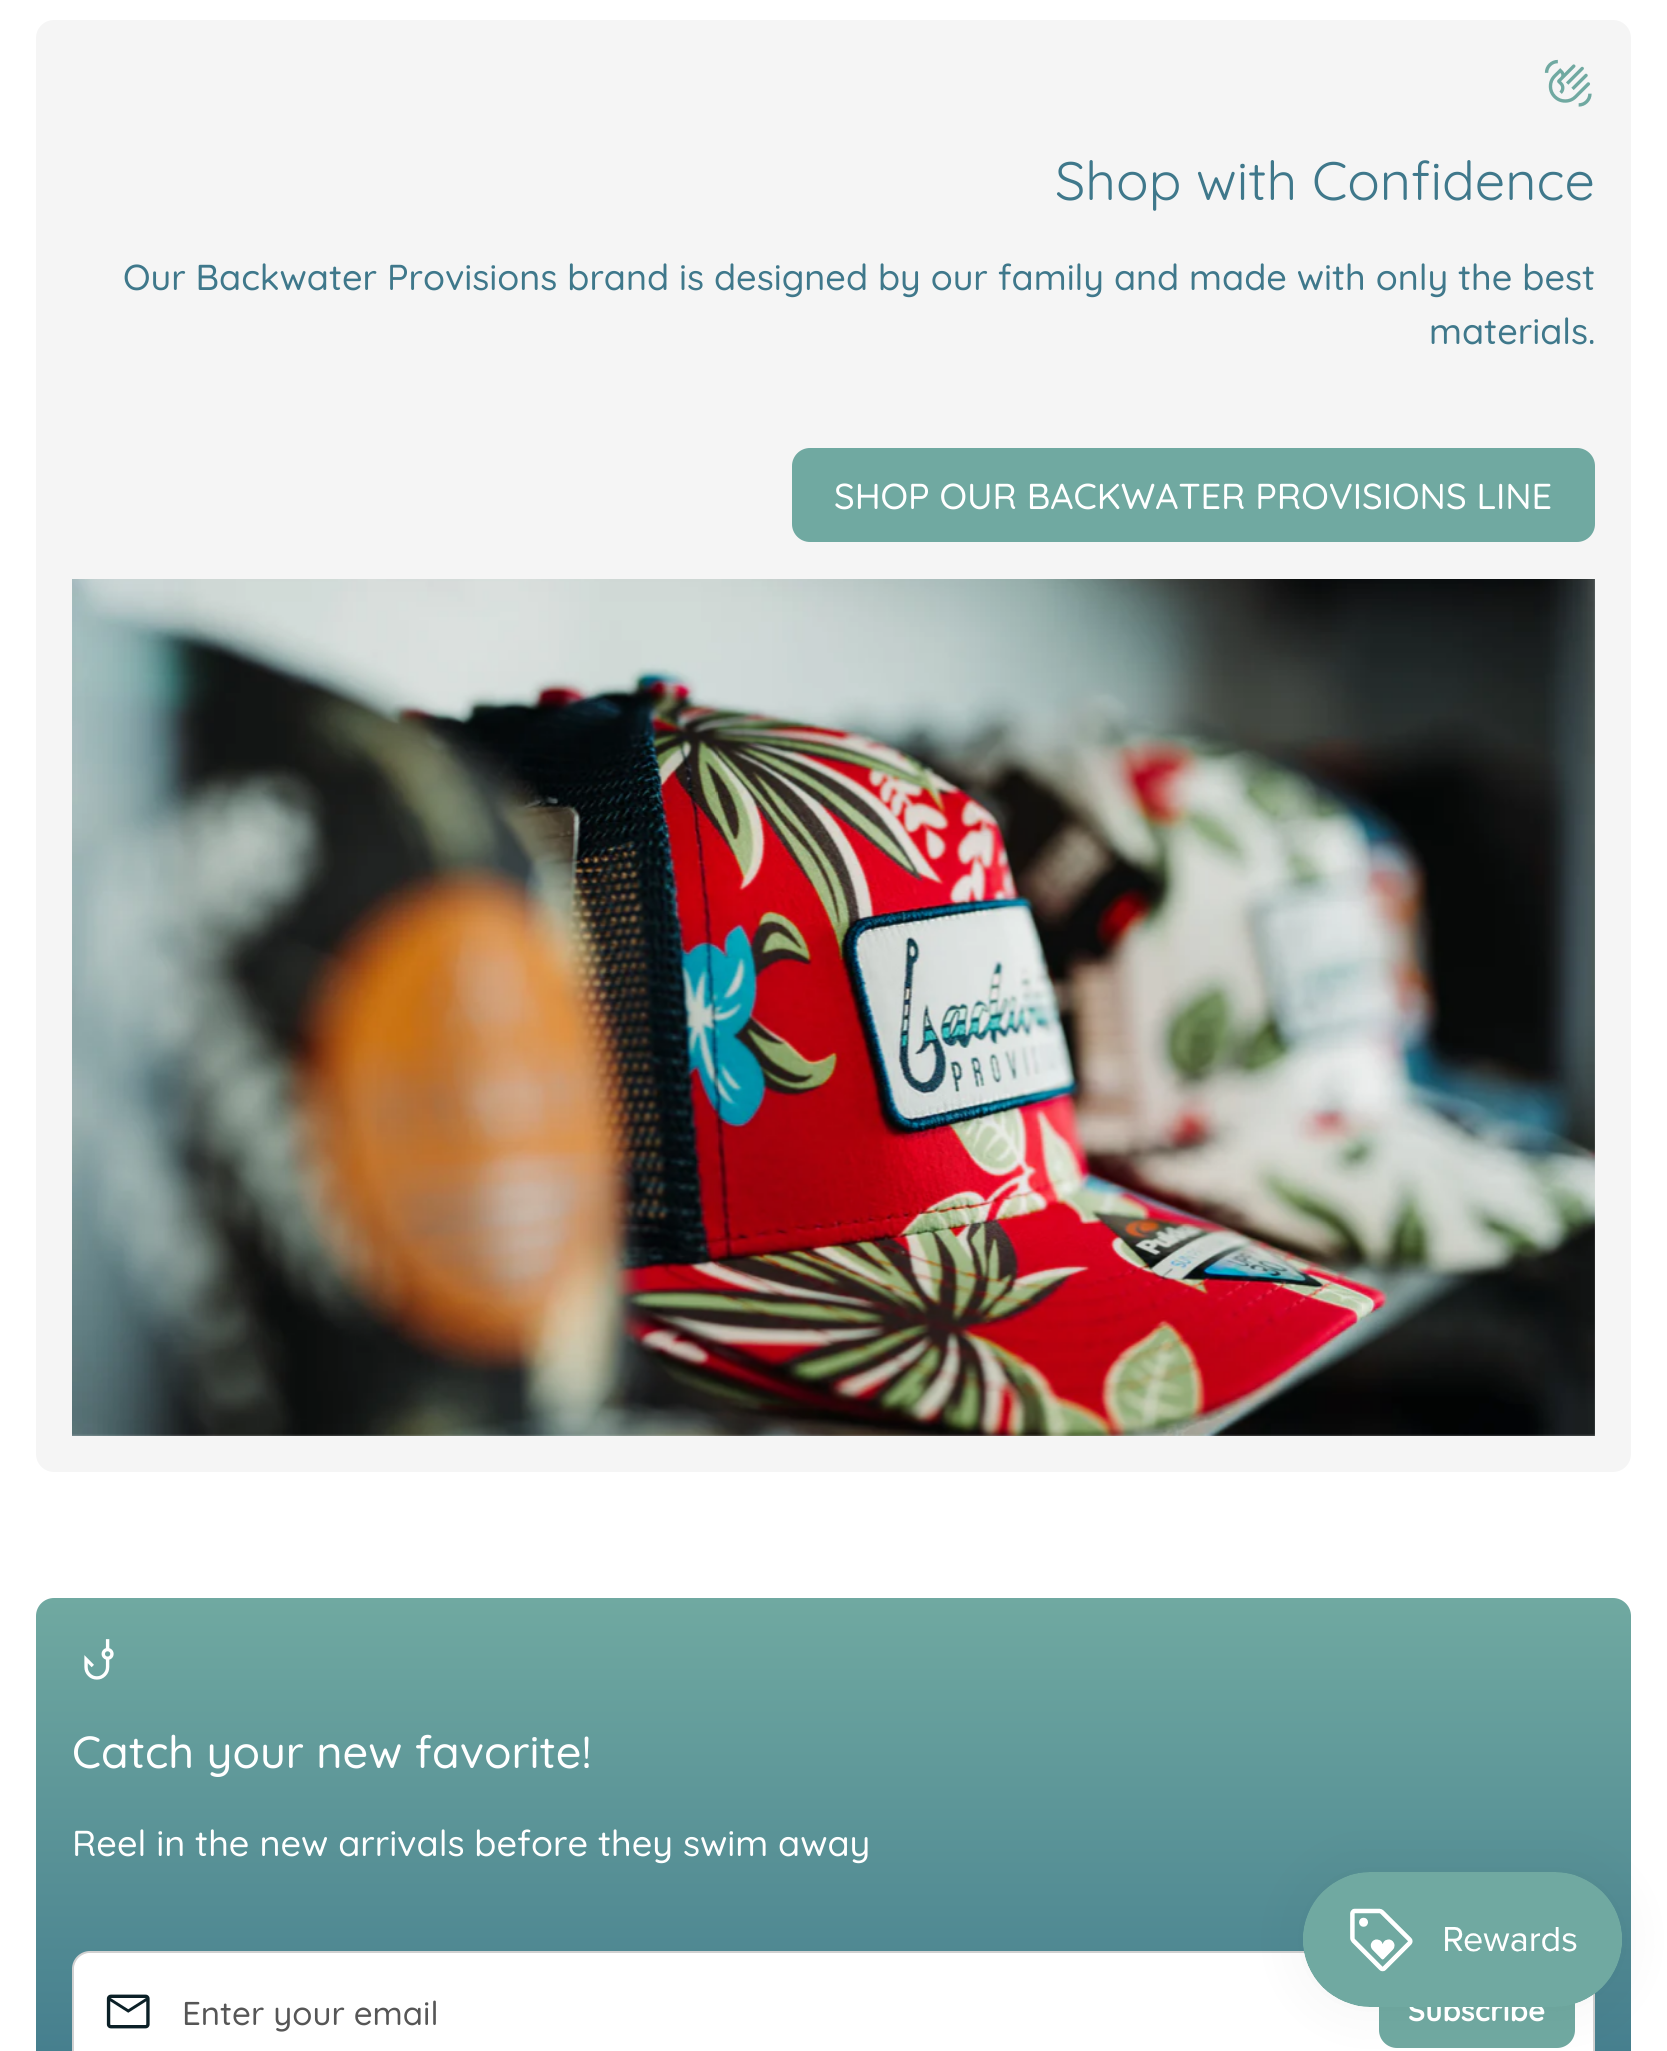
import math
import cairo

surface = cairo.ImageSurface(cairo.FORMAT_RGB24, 1667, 2051)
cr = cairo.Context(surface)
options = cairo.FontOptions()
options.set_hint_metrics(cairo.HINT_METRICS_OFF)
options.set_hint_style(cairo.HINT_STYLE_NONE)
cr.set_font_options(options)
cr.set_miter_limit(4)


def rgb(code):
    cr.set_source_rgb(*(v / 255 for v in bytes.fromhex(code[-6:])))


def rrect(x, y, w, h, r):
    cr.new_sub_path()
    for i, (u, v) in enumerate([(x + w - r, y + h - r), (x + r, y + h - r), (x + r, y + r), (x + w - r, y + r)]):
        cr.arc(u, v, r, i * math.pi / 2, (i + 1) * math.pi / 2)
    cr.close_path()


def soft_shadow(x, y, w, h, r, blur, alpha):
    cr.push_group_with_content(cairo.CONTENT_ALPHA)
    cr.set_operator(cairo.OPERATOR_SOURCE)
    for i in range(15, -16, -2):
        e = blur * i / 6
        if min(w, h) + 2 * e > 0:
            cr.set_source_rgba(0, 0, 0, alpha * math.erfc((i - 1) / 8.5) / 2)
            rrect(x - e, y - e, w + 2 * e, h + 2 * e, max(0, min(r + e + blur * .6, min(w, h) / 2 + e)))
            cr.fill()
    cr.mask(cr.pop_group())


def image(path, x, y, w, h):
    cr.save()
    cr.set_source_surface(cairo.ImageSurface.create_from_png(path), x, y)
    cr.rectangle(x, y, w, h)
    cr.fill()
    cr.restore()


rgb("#ffffff")
cr.paint()
rgb("#f5f5f5")
rrect(36, 20, 1595, 1452, 18)
cr.fill()
image("img/1.png", 1544, 59, 48, 48)
rgb("#70a9a1")
rrect(793, 449, 801, 92, 17)
cr.fill_preserve()
cr.stroke()
image("img/2.png", 72, 579, 1523, 857)
gradient = cairo.LinearGradient(834, 1598, 834, 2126)
gradient.add_color_stop_rgba(0, 0.439, 0.663, 0.631, 1)
gradient.add_color_stop_rgba(1, 0.247, 0.471, 0.545, 1)
cr.set_source(gradient)
rrect(36, 1598, 1595, 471, 18)
cr.fill()
image("img/3.png", 84, 1639, 30, 41)
rgb("#ffffff")
rrect(73, 1952, 1521, 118, 17)
cr.fill_preserve()
rgb("#d1d1d1")
cr.stroke()
rgb("#ffffff")
rrect(74, 1953, 1519, 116, 18)
cr.fill()
image("img/4.png", 106, 1994, 44, 35)
rgb("#70a9a1")
rrect(1380, 1979, 194, 68, 17)
cr.fill_preserve()
cr.stroke()
rgb("#000000")
soft_shadow(1303, 1872, 319, 135, 67.5, 28, 0.05)
cr.select_font_face("Quicksand")
cr.set_font_size(54)
rgb("#3f788b")
cr.move_to(1055, 200)
cr.show_text("Shop with Confidence")
cr.select_font_face("Quicksand Medium")
cr.set_font_size(36)
cr.move_to(123, 290)
cr.show_text("Our Backwater Provisions brand is designed by our family and made with only the best")
cr.move_to(1429, 344)
cr.show_text("materials.")
rgb("#ffffff")
cr.move_to(834, 509)
cr.show_text("SHOP OUR BACKWATER PROVISIONS LINE")
cr.set_font_size(45)
cr.move_to(72, 1768)
cr.show_text("Catch your new favorite!")
cr.set_font_size(36)
cr.move_to(72, 1856)
cr.show_text("Reel in the new arrivals before they swim away")
cr.set_font_size(33)
rgb("#565656")
cr.move_to(182, 2025)
cr.show_text("Enter your email")
cr.select_font_face("Quicksand", cairo.FONT_SLANT_NORMAL, cairo.FONT_WEIGHT_BOLD)
cr.set_font_size(29.25)
rgb("#ffffff")
cr.move_to(1408, 2021)
cr.show_text("Subscribe")
image("img/5.png", 1303, 1872, 319, 135)
surface.write_to_png("page.png")
